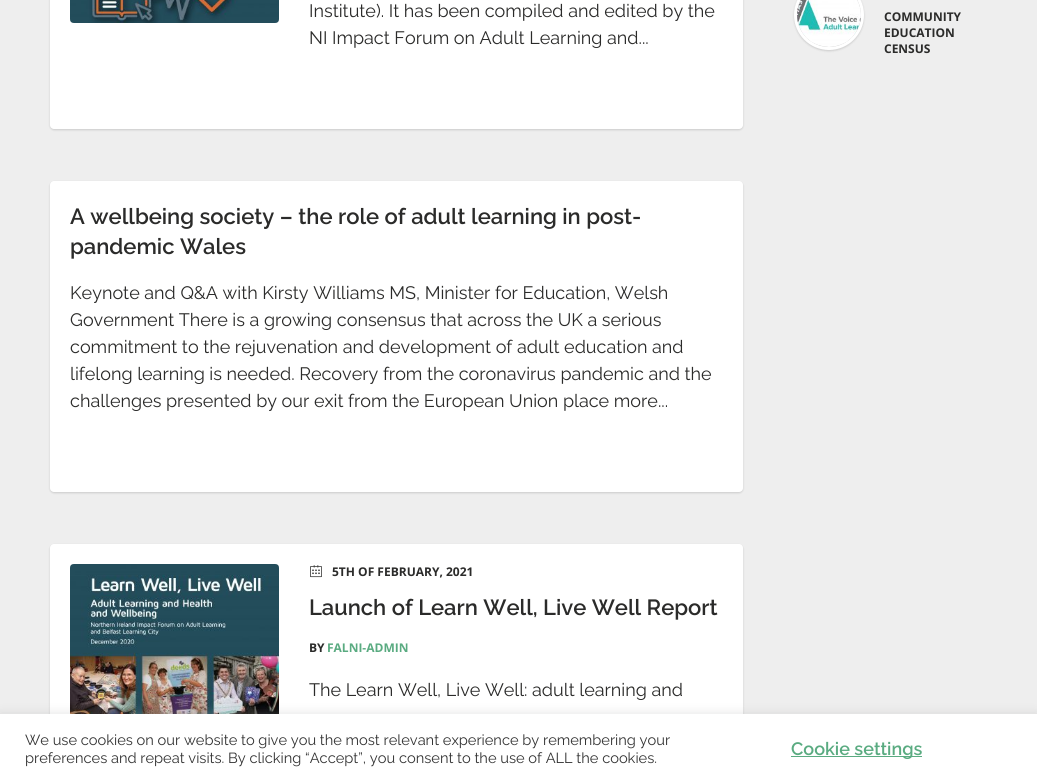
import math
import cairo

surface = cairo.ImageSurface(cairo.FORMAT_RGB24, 1037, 783)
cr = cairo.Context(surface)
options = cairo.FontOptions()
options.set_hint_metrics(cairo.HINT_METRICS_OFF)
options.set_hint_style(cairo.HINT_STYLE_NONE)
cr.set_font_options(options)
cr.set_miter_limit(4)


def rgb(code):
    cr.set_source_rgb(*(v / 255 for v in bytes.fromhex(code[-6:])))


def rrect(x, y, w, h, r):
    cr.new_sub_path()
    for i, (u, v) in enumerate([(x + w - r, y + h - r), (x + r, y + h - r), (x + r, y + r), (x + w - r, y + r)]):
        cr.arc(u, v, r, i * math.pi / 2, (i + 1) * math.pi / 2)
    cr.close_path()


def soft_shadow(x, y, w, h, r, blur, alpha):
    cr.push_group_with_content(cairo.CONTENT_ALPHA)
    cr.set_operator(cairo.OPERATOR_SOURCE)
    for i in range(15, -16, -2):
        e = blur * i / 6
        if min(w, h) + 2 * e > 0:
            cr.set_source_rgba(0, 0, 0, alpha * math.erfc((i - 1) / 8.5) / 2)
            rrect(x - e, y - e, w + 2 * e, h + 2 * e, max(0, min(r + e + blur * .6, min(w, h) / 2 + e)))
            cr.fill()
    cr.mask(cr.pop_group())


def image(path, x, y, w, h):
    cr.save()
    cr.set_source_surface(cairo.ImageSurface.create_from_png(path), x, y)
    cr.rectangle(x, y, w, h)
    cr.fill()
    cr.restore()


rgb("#eeeeee")
cr.paint()
rgb("#000000")
soft_shadow(50, -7, 693, 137, 4, 1, 0.15)
rgb("#ffffff")
rrect(50, -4, 693, 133, 4)
cr.fill()
image("img/1.png", 70, 0, 209, 23)
rgb("#000000")
soft_shadow(50, 182, 693, 311, 4, 1, 0.15)
rgb("#ffffff")
rrect(50, 181, 693, 311, 4)
cr.fill()
rgb("#000000")
soft_shadow(50, 545, 693, 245, 4, 1, 0.15)
rgb("#ffffff")
rrect(50, 544, 693, 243, 4)
cr.fill()
image("img/2.png", 70, 564, 209, 150)
image("img/3.png", 310, 565, 12, 13)
rgb("#000000")
soft_shadow(794, -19, 70, 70, 35, 1, 0.15)
cr.arc(829, 15, 33.5, 0, 2 * math.pi)
rgb("#ffffff")
cr.set_line_width(3)
cr.stroke()
image("img/4.png", 797, 0, 64, 47)
rgb("#acabab")
soft_shadow(0, 713, 1037, 69, 0, 5, 0.3)
rgb("#ffffff")
cr.rectangle(0, 714, 1037, 69)
cr.fill()
rgb("#5aab81")
cr.rectangle(791, 756, 131, 1)
cr.fill()
cr.select_font_face("Raleway")
cr.set_font_size(18)
rgb("#2b2b2a")
cr.move_to(309, 17)
cr.show_text("Institute). It has been compiled and edited by the")
cr.move_to(309, 44)
cr.show_text("NI Impact Forum on Adult Learning and...")
cr.select_font_face("Raleway SemiBold")
cr.set_font_size(22)
cr.move_to(70, 224)
cr.show_text("A wellbeing society – the role of adult learning in post-")
cr.move_to(70, 254)
cr.show_text("pandemic Wales")
cr.select_font_face("Raleway")
cr.set_font_size(18)
for x, y, s in [
    (70, 299, "Keynote and Q&A with Kirsty Williams MS, Minister for Education, Welsh"),
    (70, 326, "Government There is a growing consensus that across the UK a serious"),
    (70, 353, "commitment to the rejuvenation and development of adult education and"),
    (70, 380, "lifelong learning is needed. Recovery from the coronavirus pandemic and the"),
    (70, 407, "challenges presented by our exit from the European Union place more..."),
]:
    cr.move_to(x, y)
    cr.show_text(s)
cr.select_font_face("Open Sans", cairo.FONT_SLANT_NORMAL, cairo.FONT_WEIGHT_BOLD)
cr.set_font_size(12)
cr.move_to(332, 576)
cr.show_text("5TH OF FEBRUARY, 2021")
cr.select_font_face("Raleway SemiBold")
cr.set_font_size(22)
cr.move_to(309, 615)
cr.show_text("Launch of Learn Well, Live Well Report")
cr.select_font_face("Open Sans", cairo.FONT_SLANT_NORMAL, cairo.FONT_WEIGHT_BOLD)
cr.set_font_size(12)
cr.move_to(309, 652)
cr.show_text("BY")
rgb("#5aab81")
cr.move_to(327, 652)
cr.show_text("FALNI-ADMIN")
cr.select_font_face("Raleway")
cr.set_font_size(18)
rgb("#2b2b2a")
cr.move_to(309, 696)
cr.show_text("The Learn Well, Live Well: adult learning and")
cr.select_font_face("Open Sans", cairo.FONT_SLANT_NORMAL, cairo.FONT_WEIGHT_BOLD)
cr.set_font_size(12)
for x, y, s in [
    (884, 21, "COMMUNITY"),
    (884, 37, "EDUCATION"),
    (884, 53, "CENSUS"),
]:
    cr.move_to(x, y)
    cr.show_text(s)
cr.select_font_face("Raleway")
cr.set_font_size(14.65)
rgb("#333333")
cr.move_to(25, 745)
cr.show_text("We use cookies on our website to give you the most relevant experience by remembering your")
cr.move_to(25, 763)
cr.show_text("preferences and repeat visits. By clicking “Accept”, you consent to the use of ALL the cookies.")
cr.select_font_face("Raleway SemiBold")
cr.set_font_size(18)
rgb("#5aab81")
cr.move_to(791, 755)
cr.show_text("Cookie settings")
surface.write_to_png("page.png")
